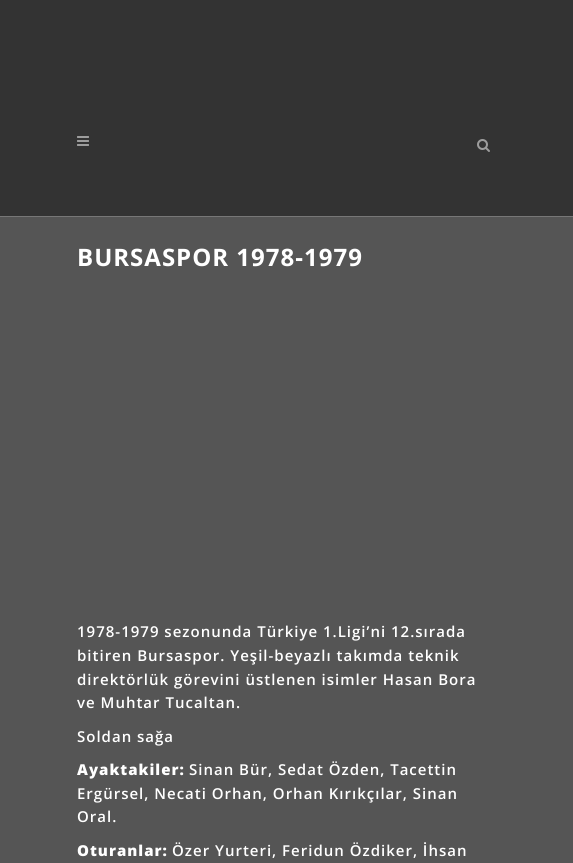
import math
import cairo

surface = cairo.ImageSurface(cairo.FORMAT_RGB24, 573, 863)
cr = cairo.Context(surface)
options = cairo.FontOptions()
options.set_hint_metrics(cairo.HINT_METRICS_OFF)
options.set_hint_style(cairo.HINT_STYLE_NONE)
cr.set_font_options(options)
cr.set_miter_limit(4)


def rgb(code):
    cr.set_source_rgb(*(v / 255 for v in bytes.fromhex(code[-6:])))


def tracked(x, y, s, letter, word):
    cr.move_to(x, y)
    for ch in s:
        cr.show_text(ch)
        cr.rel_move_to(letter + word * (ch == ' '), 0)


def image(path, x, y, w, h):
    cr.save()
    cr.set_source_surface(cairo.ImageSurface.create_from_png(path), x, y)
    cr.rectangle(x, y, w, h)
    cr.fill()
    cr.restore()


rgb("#555555")
cr.paint()
rgb("#333333")
cr.rectangle(0, 0, 573, 216)
cr.fill()
rgb("#777777")
cr.rectangle(0, 216, 573, 1)
cr.fill()
image("img/1.png", 77, 136, 12, 10)
image("img/2.png", 477, 139, 13, 13)
cr.select_font_face("Open Sans", cairo.FONT_SLANT_NORMAL, cairo.FONT_WEIGHT_BOLD)
cr.set_font_size(24)
rgb("#ffffff")
tracked(77, 266, "BURSASPOR 1978-1979", 1, 0)
cr.select_font_face("Open Sans SemiBold")
cr.set_font_size(15)
for x, y, s in [
    (77, 637, "1978-1979 sezonunda Türkiye 1.Ligi’ni 12.sırada"),
    (77, 661, "bitiren Bursaspor. Yeşil-beyazlı takımda teknik"),
    (77, 685, "direktörlük görevini üstlenen isimler Hasan Bora"),
    (77, 708, "ve Muhtar Tucaltan."),
    (77, 742, "Soldan sağa"),
]:
    tracked(x, y, s, 1, 0)
cr.select_font_face("Open Sans ExtraBold")
tracked(77, 775, "Ayaktakiler:", 1, 0)
cr.select_font_face("Open Sans SemiBold")
for x, y, s in [
    (189, 775, "Sinan Bür, Sedat Özden, Tacettin"),
    (77, 799, "Ergürsel, Necati Orhan, Orhan Kırıkçılar, Sinan"),
    (77, 822, "Oral."),
]:
    tracked(x, y, s, 1, 0)
cr.select_font_face("Open Sans ExtraBold")
tracked(77, 856, "Oturanlar:", 1, 0)
cr.select_font_face("Open Sans SemiBold")
tracked(172, 856, "Özer Yurteri, Feridun Özdiker, İhsan", 1, 0)
surface.write_to_png("page.png")
